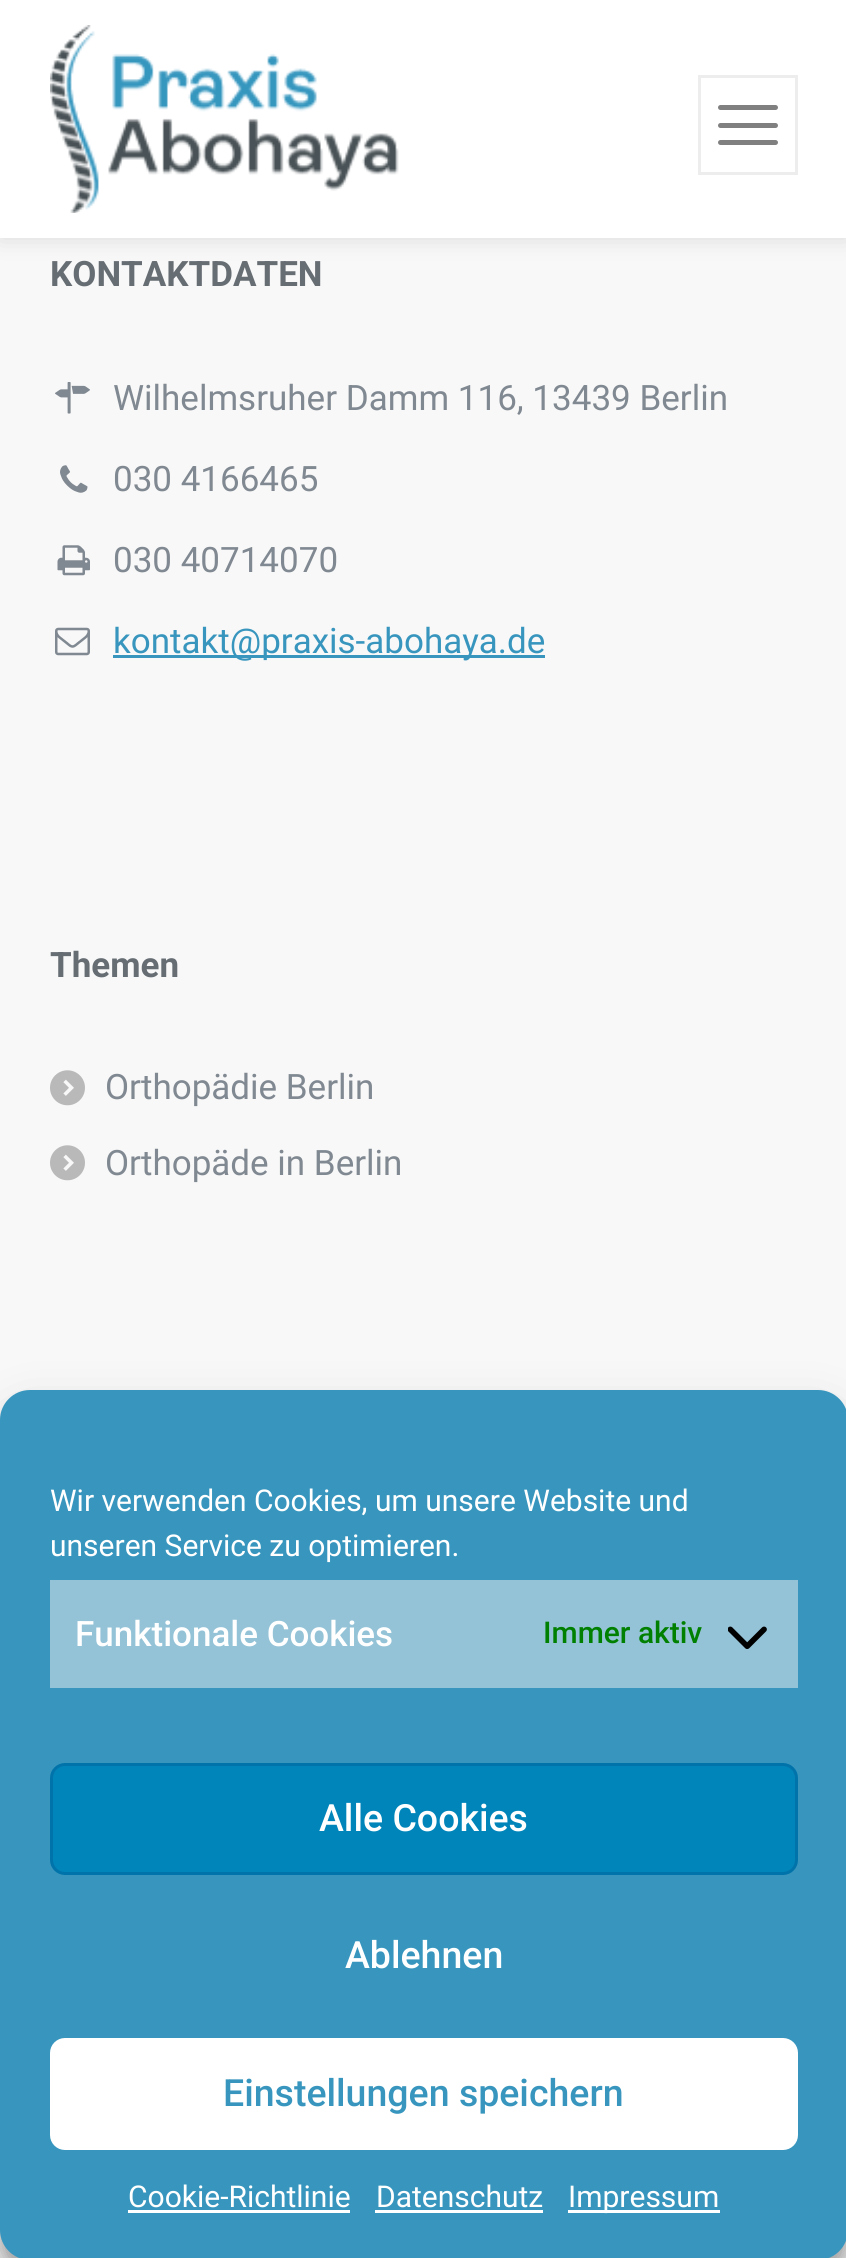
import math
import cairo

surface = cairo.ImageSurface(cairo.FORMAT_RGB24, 846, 2258)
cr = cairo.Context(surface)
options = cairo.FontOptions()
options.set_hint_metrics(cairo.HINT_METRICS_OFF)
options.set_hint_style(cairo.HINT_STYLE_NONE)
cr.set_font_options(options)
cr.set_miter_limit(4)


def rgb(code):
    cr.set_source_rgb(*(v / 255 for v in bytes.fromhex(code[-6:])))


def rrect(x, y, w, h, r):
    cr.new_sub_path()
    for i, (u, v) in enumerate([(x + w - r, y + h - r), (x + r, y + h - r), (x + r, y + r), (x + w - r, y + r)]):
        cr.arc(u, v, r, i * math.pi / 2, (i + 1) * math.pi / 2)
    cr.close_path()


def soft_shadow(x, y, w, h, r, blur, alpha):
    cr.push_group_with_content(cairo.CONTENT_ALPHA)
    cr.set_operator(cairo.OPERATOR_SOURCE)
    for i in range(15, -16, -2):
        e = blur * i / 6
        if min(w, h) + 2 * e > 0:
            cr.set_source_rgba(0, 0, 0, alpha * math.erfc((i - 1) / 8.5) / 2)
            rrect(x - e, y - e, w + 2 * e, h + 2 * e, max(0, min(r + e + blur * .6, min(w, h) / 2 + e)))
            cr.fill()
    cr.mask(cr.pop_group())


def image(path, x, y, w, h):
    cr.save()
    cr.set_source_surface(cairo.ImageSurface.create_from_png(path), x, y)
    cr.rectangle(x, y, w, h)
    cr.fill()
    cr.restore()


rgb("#f8f8f8")
cr.paint()
rgb("#000000")
soft_shadow(0, 0, 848, 238, 0, 12.5, 0.12)
rgb("#ffffff")
cr.rectangle(0, 0, 846, 238)
cr.fill()
image("img/1.png", 50, 25, 349, 188)
cr.rectangle(699.5, 76.5, 97, 97)
rgb("#ededed")
cr.set_line_width(3)
cr.stroke()
rgb("#808080")
rrect(718, 105, 60, 5, 2.5)
cr.fill()
rrect(718, 123, 60, 5, 2.5)
cr.fill()
rrect(718, 140, 60, 5, 2.5)
cr.fill()
image("img/2.png", 55, 382, 35, 32)
image("img/3.png", 60, 465, 28, 28)
image("img/4.png", 57, 545, 33, 31)
image("img/5.png", 55, 627, 35, 29)
rgb("#3896be")
cr.rectangle(113, 655, 432, 3)
cr.fill()
image("img/6.png", 50, 1070, 35, 36)
image("img/6.png", 50, 1145, 35, 36)
rgb("#000000")
soft_shadow(0, 1405, 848, 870, 30, 7.5, 0.23)
soft_shadow(0, 1415, 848, 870, 30, 25, 0.19)
rgb("#3896be")
rrect(0, 1390, 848, 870, 30)
cr.fill()
rgb("#94c3d7")
cr.rectangle(50, 1580, 748, 108)
cr.fill()
image("img/7.png", 728, 1626, 39, 23)
rgb("#0085ba")
rrect(51.5, 1764.5, 745, 109, 13.5)
cr.fill_preserve()
rgb("#0073aa")
cr.stroke()
rgb("#ffffff")
rrect(51.5, 2039.5, 745, 109, 13.5)
cr.fill_preserve()
cr.stroke()
for x, y, w, h, color in [
    (128, 2210, 222, 3, "#ffffff"),
    (375, 2210, 168, 3, "#ffffff"),
    (568, 2210, 152, 3, "#ffffff"),
]:
    rgb(color)
    cr.rectangle(x, y, w, h)
    cr.fill()
cr.select_font_face("Roboto", cairo.FONT_SLANT_NORMAL, cairo.FONT_WEIGHT_BOLD)
cr.set_font_size(35)
rgb("#666d73")
cr.move_to(50, 286)
cr.show_text("KONTAKTDATEN")
cr.select_font_face("Roboto")
rgb("#808891")
for x, y, s in [
    (113, 410, "Wilhelmsruher Damm 116, 13439 Berlin"),
    (113, 491, "030 4166465"),
    (113, 572, "030 40714070"),
]:
    cr.move_to(x, y)
    cr.show_text(s)
rgb("#3896be")
cr.move_to(113, 653)
cr.show_text("kontakt@praxis-abohaya.de")
cr.select_font_face("Roboto", cairo.FONT_SLANT_NORMAL, cairo.FONT_WEIGHT_BOLD)
rgb("#666d73")
cr.move_to(50, 977)
cr.show_text("Themen")
cr.select_font_face("Roboto")
rgb("#808891")
cr.move_to(105, 1099)
cr.show_text("Orthopädie Berlin")
cr.move_to(105, 1175)
cr.show_text("Orthopäde in Berlin")
cr.set_font_size(30)
rgb("#ffffff")
cr.move_to(50, 1511)
cr.show_text("Wir verwenden Cookies, um unsere Website und")
cr.move_to(50, 1556)
cr.show_text("unseren Service zu optimieren.")
cr.select_font_face("Roboto Medium")
cr.set_font_size(35)
cr.move_to(75, 1646)
cr.show_text("Funktionale Cookies")
cr.set_font_size(30)
rgb("#008000")
cr.move_to(543, 1643)
cr.show_text("Immer aktiv")
cr.set_font_size(37.5)
rgb("#ffffff")
cr.move_to(319, 1831)
cr.show_text("Alle Cookies")
cr.move_to(345, 1968)
cr.show_text("Ablehnen")
rgb("#3896be")
cr.move_to(223, 2106)
cr.show_text("Einstellungen speichern")
cr.select_font_face("Roboto")
cr.set_font_size(30)
rgb("#ffffff")
for x, y, s in [
    (128, 2207, "Cookie-Richtlinie"),
    (376, 2207, "Datenschutz"),
    (568, 2207, "Impressum"),
]:
    cr.move_to(x, y)
    cr.show_text(s)
surface.write_to_png("page.png")
